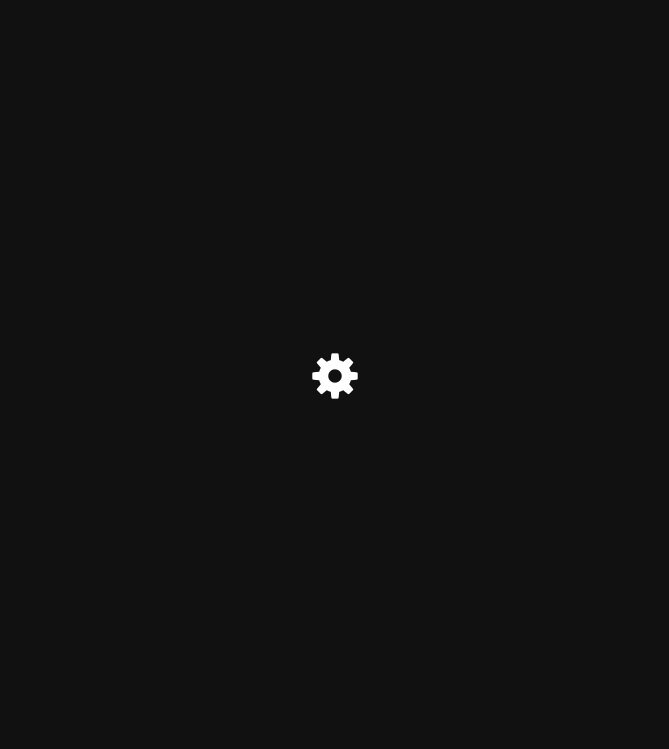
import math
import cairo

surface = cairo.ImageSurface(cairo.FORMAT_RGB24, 669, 749)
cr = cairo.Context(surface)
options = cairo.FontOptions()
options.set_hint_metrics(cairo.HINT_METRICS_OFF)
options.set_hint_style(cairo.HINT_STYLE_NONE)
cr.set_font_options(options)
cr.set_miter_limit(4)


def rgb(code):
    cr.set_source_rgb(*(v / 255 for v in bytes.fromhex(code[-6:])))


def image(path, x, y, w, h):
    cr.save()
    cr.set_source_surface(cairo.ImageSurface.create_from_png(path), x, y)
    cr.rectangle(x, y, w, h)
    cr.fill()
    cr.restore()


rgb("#111111")
cr.paint()
image("img/1.png", 312, 353, 46, 46)
surface.write_to_png("page.png")
